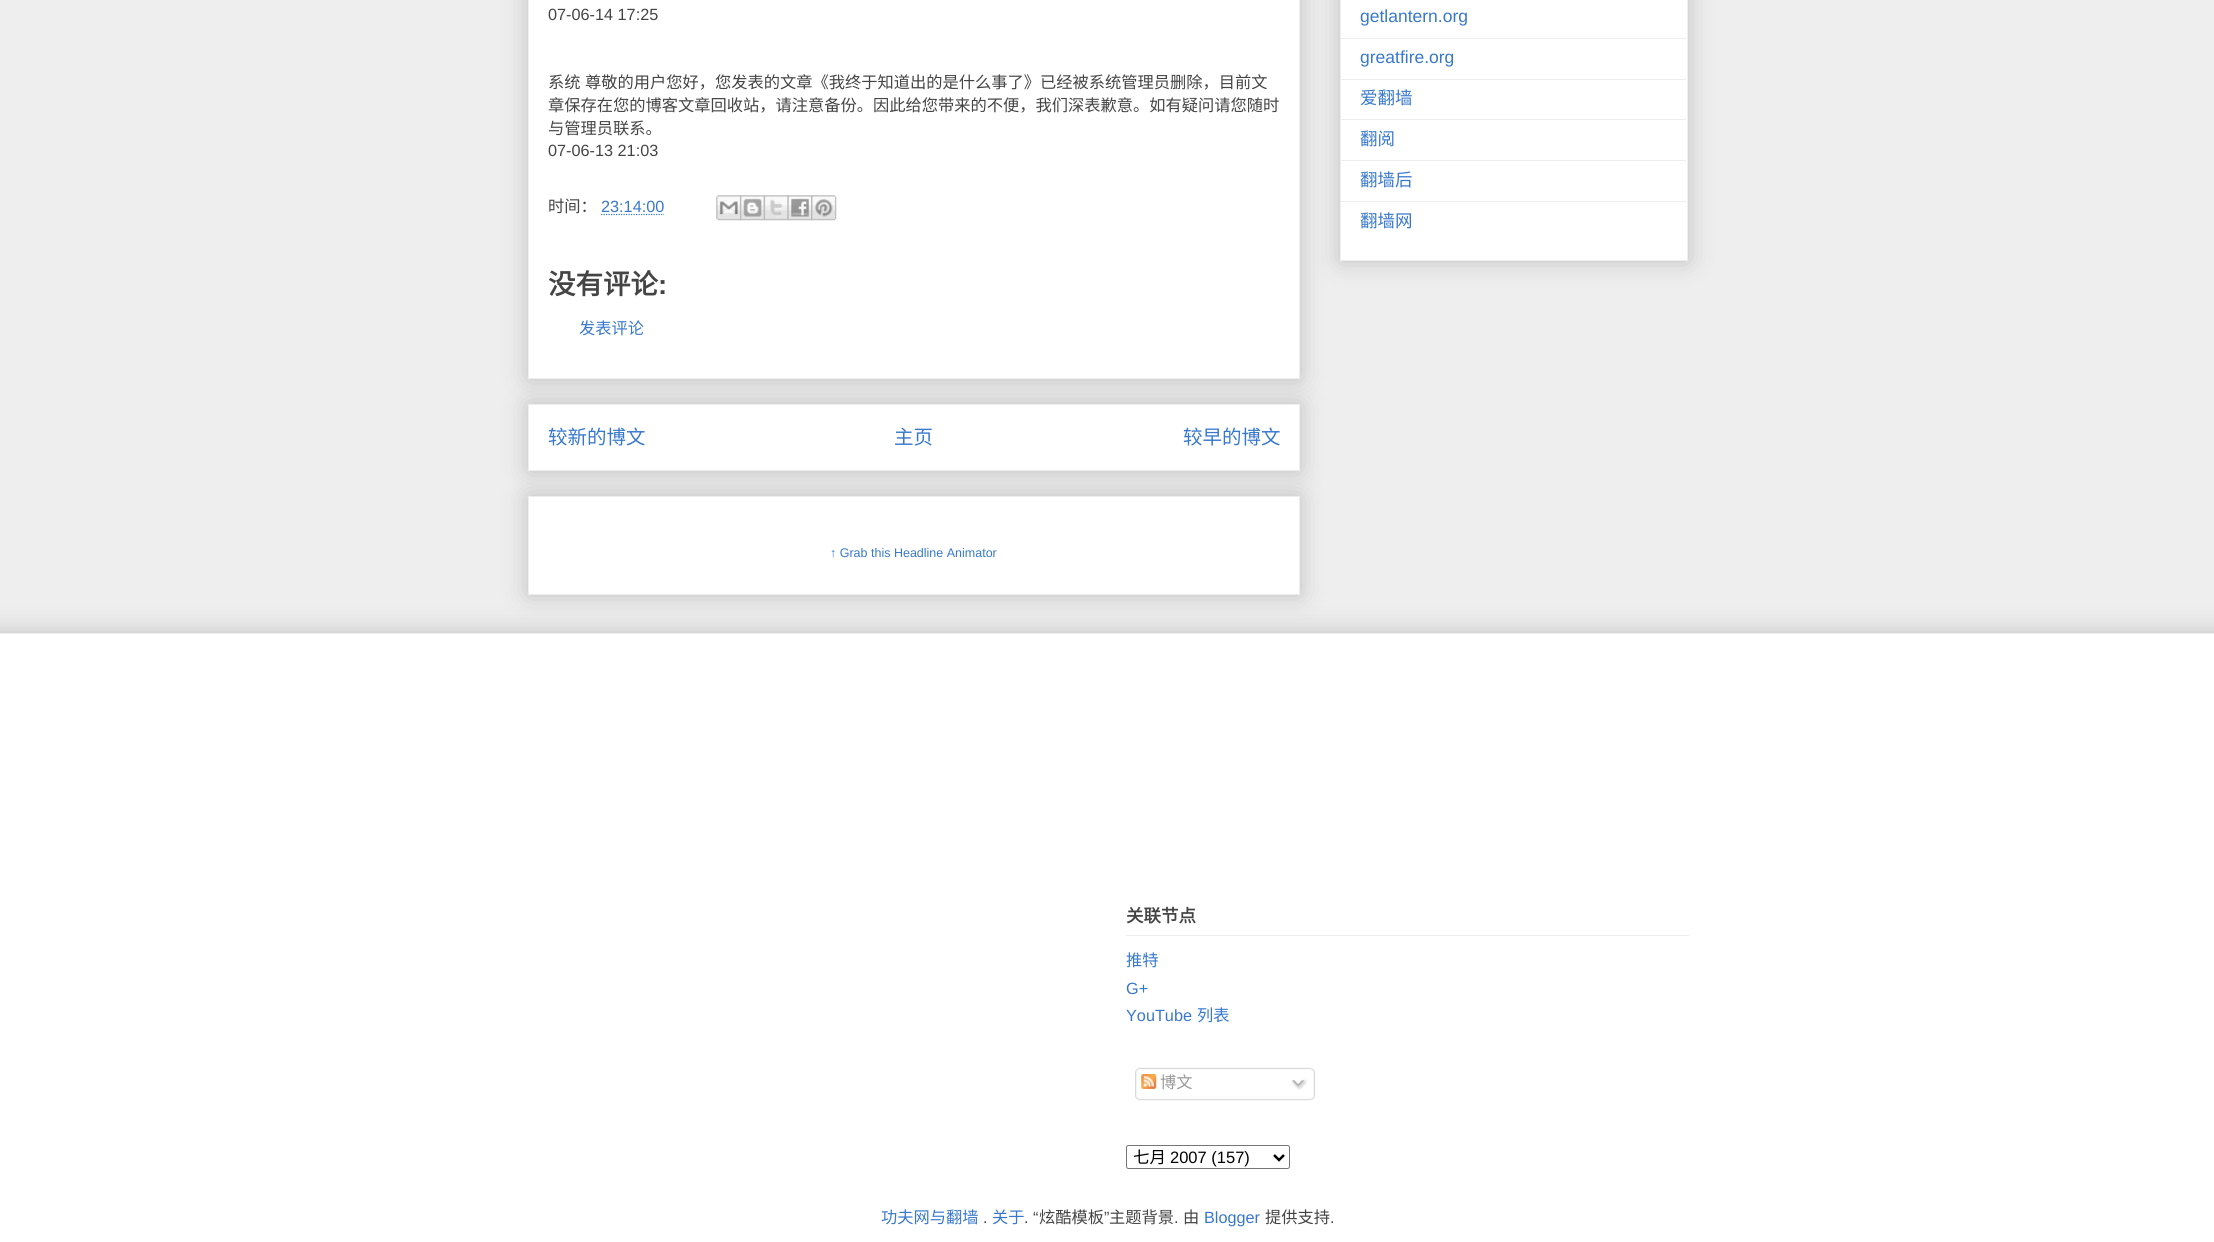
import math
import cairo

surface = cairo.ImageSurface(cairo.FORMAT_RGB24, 2214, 1242)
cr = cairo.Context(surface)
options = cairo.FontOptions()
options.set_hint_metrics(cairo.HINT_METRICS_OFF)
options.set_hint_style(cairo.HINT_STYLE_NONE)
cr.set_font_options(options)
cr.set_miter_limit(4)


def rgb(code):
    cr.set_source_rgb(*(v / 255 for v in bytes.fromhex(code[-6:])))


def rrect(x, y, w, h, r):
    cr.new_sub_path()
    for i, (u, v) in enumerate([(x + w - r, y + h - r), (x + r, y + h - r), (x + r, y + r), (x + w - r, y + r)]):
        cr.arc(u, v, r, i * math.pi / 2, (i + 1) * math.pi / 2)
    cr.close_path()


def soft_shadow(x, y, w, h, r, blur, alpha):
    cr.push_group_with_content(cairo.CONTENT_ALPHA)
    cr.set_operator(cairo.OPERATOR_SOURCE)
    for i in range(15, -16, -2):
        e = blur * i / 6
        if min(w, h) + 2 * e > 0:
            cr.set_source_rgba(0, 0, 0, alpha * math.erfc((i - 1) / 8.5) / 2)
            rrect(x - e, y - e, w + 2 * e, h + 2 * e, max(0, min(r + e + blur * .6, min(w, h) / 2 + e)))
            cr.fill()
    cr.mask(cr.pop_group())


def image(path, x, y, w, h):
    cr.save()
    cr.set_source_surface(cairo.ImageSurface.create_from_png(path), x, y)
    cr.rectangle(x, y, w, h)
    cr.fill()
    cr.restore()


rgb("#eeeeee")
cr.paint()
rgb("#000000")
soft_shadow(528, 404, 772, 67, 0, 12.5, 0.2)
rgb("#ffffff")
cr.rectangle(528.5, 404.5, 771, 66)
cr.fill_preserve()
rgb("#eeeeee")
cr.set_line_width(1)
cr.stroke()
rgb("#000000")
soft_shadow(528, -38, 772, 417, 0, 12.5, 0.2)
rgb("#ffffff")
cr.rectangle(528.5, -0.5, 771, 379)
cr.fill_preserve()
rgb("#eeeeee")
cr.stroke()
cr.new_path()
cr.move_to(601, 214.5)
cr.line_to(664, 214.5)
rgb("#3778cd")
cr.set_line_width(1.2)
cr.set_dash([1.25, 1.25])
cr.stroke()
image("img/1.png", 716, 195, 26, 26)
image("img/2.png", 740, 195, 25, 26)
image("img/3.png", 763, 195, 26, 26)
image("img/4.png", 787, 195, 26, 26)
image("img/5.png", 811, 195, 26, 26)
rgb("#000000")
soft_shadow(528, 496, 772, 99, 0, 12.5, 0.2)
rgb("#ffffff")
cr.rectangle(528.5, 496.5, 771, 98)
cr.fill_preserve()
rgb("#eeeeee")
cr.set_line_width(1)
cr.set_dash([])
cr.stroke()
rgb("#000000")
soft_shadow(1340, -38, 348, 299, 0, 12.5, 0.2)
rgb("#ffffff")
cr.rectangle(1340.5, -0.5, 347, 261)
cr.fill_preserve()
rgb("#eeeeee")
cr.stroke()
for x, y, w, h, color in [
    (1341, 38, 345, 1, "#eeeeee"),
    (1341, 79, 345, 1, "#eeeeee"),
    (1341, 119, 345, 1, "#eeeeee"),
    (1341, 160, 345, 1, "#eeeeee"),
    (1341, 201, 345, 1, "#eeeeee"),
]:
    rgb(color)
    cr.rectangle(x, y, w, h)
    cr.fill()
rgb("#000000")
soft_shadow(-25, 633, 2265, 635, 0, 12.5, 0.2)
for x, y, w, h, color in [
    (0, 634, 2214, 608, "#ffffff"),
    (0, 633, 2214, 1, "#eeeeee"),
    (1126, 935, 563, 1, "#eeeeee"),
]:
    rgb(color)
    cr.rectangle(x, y, w, h)
    cr.fill()
image("img/6.png", 1135, 1067, 180, 30)
image("img/7.png", 1141, 1074, 16, 15)
image("img/8.png", 1291, 1079, 17, 11)
image("img/9.png", 1135, 1096, 180, 5)
rrect(1126.5, 1145.5, 163, 23, 2)
rgb("#767676")
cr.stroke()
cr.new_path()
cr.move_to(1274, 1155)
cr.line_to(1279, 1160)
cr.line_to(1284, 1155)
rgb("#000000")
cr.set_line_width(2.5)
cr.stroke()
cr.select_font_face("Liberation Sans")
cr.set_font_size(16.25)
rgb("#444444")
cr.move_to(548, 20)
cr.show_text("07-06-14 17:25")
cr.select_font_face("Noto Sans CJK SC")
for x, y, s in [
    (548, 88, "系统"),
    (585, 88, "尊敬的用户您好，您发表的文章《我终于知道出的是什么事了》已经被系统管理员删除，目前文"),
    (548, 111, "章保存在您的博客文章回收站，请注意备份。因此给您带来的不便，我们深表歉意。如有疑问请您随时"),
    (548, 134, "与管理员联系。"),
]:
    cr.move_to(x, y)
    cr.show_text(s)
cr.select_font_face("Liberation Sans")
cr.move_to(548, 156)
cr.show_text("07-06-13 21:03")
cr.select_font_face("Noto Sans CJK SC")
cr.move_to(548, 212)
cr.show_text("时间：")
cr.select_font_face("Liberation Sans")
rgb("#3778cd")
cr.move_to(601, 212)
cr.show_text("23:14:00")
cr.select_font_face("Noto Sans CJK SC", cairo.FONT_SLANT_NORMAL, cairo.FONT_WEIGHT_BOLD)
cr.set_font_size(27.5)
rgb("#444444")
cr.move_to(548, 294)
cr.show_text("没有评论")
cr.select_font_face("Liberation Sans", cairo.FONT_SLANT_NORMAL, cairo.FONT_WEIGHT_BOLD)
cr.move_to(658, 294)
cr.show_text(":")
cr.select_font_face("Noto Sans CJK SC")
cr.set_font_size(16.25)
rgb("#3778cd")
cr.move_to(579, 334)
cr.show_text("发表评论")
cr.set_font_size(19.5)
for x, y, s in [
    (548, 444, "较新的博文"),
    (894, 444, "主页"),
    (1183, 444, "较早的博文"),
]:
    cr.move_to(x, y)
    cr.show_text(s)
cr.select_font_face("Liberation Sans")
cr.set_font_size(12.5)
cr.move_to(830, 557)
cr.show_text("↑ Grab this Headline Animator")
cr.set_font_size(17.5)
cr.move_to(1360, 22)
cr.show_text("getlantern.org")
cr.move_to(1360, 63)
cr.show_text("greatfire.org")
cr.select_font_face("Noto Sans CJK SC")
for x, y, s in [
    (1360, 104, "爱翻墙"),
    (1360, 145, "翻阅"),
    (1360, 186, "翻墙后"),
    (1360, 227, "翻墙网"),
]:
    cr.move_to(x, y)
    cr.show_text(s)
cr.select_font_face("Noto Sans CJK SC", cairo.FONT_SLANT_NORMAL, cairo.FONT_WEIGHT_BOLD)
rgb("#444444")
cr.move_to(1126, 922)
cr.show_text("关联节点")
cr.select_font_face("Noto Sans CJK SC")
cr.set_font_size(16.25)
rgb("#3778cd")
cr.move_to(1126, 966)
cr.show_text("推特")
cr.select_font_face("Liberation Sans")
cr.move_to(1126, 994)
cr.show_text("G+")
cr.move_to(1126, 1021)
cr.show_text("YouTube")
cr.select_font_face("Noto Sans CJK SC")
cr.move_to(1197, 1021)
cr.show_text("列表")
rgb("#999999")
cr.move_to(1160, 1088)
cr.show_text("博文")
cr.set_font_size(16.5)
rgb("#000000")
cr.move_to(1133, 1163)
cr.show_text("七月")
cr.select_font_face("Liberation Sans")
cr.move_to(1170, 1163)
cr.show_text("2007 (157)")
cr.select_font_face("Noto Sans CJK SC")
cr.set_font_size(16.25)
rgb("#3778cd")
cr.move_to(881, 1223)
cr.show_text("功夫网与翻墙")
cr.select_font_face("Liberation Sans")
rgb("#444444")
cr.move_to(983, 1223)
cr.show_text(".")
cr.select_font_face("Noto Sans CJK SC")
rgb("#3778cd")
cr.move_to(992, 1223)
cr.show_text("关于")
cr.select_font_face("Liberation Sans")
rgb("#444444")
cr.move_to(1024, 1223)
cr.show_text(". “")
cr.select_font_face("Noto Sans CJK SC")
cr.move_to(1039, 1223)
cr.show_text("炫酷模板")
cr.select_font_face("Liberation Sans")
cr.move_to(1104, 1223)
cr.show_text("”")
cr.select_font_face("Noto Sans CJK SC")
cr.move_to(1109, 1223)
cr.show_text("主题背景")
cr.select_font_face("Liberation Sans")
cr.move_to(1174, 1223)
cr.show_text(".")
cr.select_font_face("Noto Sans CJK SC")
cr.move_to(1183, 1223)
cr.show_text("由")
cr.select_font_face("Liberation Sans")
rgb("#3778cd")
cr.move_to(1204, 1223)
cr.show_text("Blogger")
cr.select_font_face("Noto Sans CJK SC")
rgb("#444444")
cr.move_to(1265, 1223)
cr.show_text("提供支持")
cr.select_font_face("Liberation Sans")
cr.move_to(1330, 1223)
cr.show_text(".")
surface.write_to_png("page.png")
